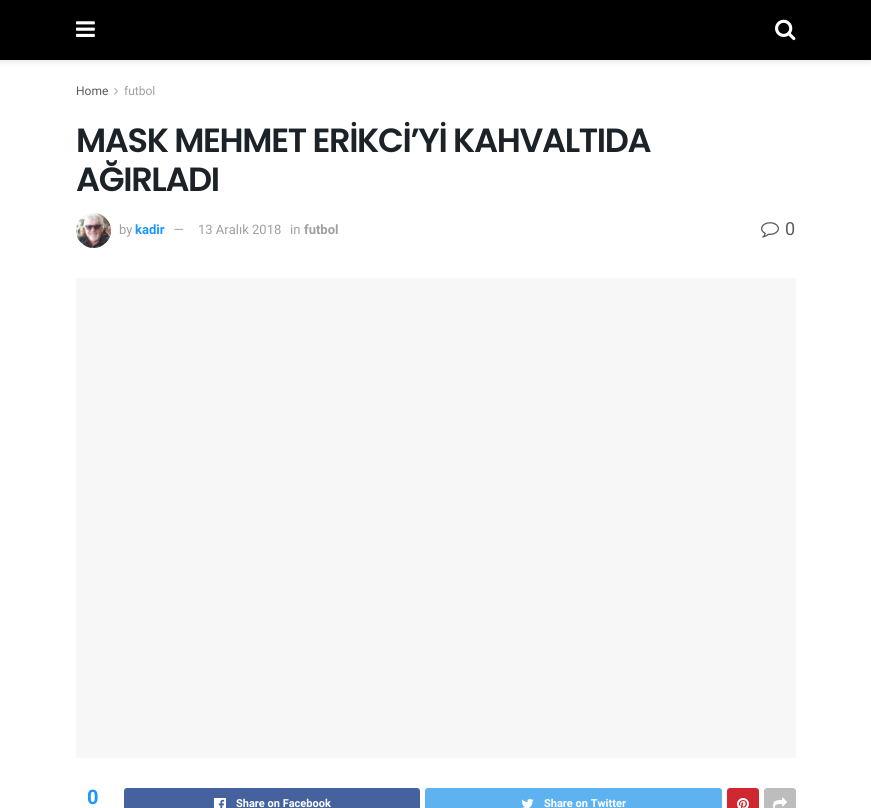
import math
import cairo

surface = cairo.ImageSurface(cairo.FORMAT_RGB24, 871, 808)
cr = cairo.Context(surface)
options = cairo.FontOptions()
options.set_hint_metrics(cairo.HINT_METRICS_OFF)
options.set_hint_style(cairo.HINT_STYLE_NONE)
cr.set_font_options(options)
cr.set_miter_limit(4)


def rgb(code):
    cr.set_source_rgb(*(v / 255 for v in bytes.fromhex(code[-6:])))


def tracked(x, y, s, letter, word):
    cr.move_to(x, y)
    for ch in s:
        cr.show_text(ch)
        cr.rel_move_to(letter + word * (ch == ' '), 0)


def rrect(x, y, w, h, r):
    cr.new_sub_path()
    for i, (u, v) in enumerate([(x + w - r, y + h - r), (x + r, y + h - r), (x + r, y + r), (x + w - r, y + r)]):
        cr.arc(u, v, r, i * math.pi / 2, (i + 1) * math.pi / 2)
    cr.close_path()


def soft_shadow(x, y, w, h, r, blur, alpha):
    cr.push_group_with_content(cairo.CONTENT_ALPHA)
    cr.set_operator(cairo.OPERATOR_SOURCE)
    for i in range(15, -16, -2):
        e = blur * i / 6
        if min(w, h) + 2 * e > 0:
            cr.set_source_rgba(0, 0, 0, alpha * math.erfc((i - 1) / 8.5) / 2)
            rrect(x - e, y - e, w + 2 * e, h + 2 * e, max(0, min(r + e + blur * .6, min(w, h) / 2 + e)))
            cr.fill()
    cr.mask(cr.pop_group())


def image(path, x, y, w, h):
    cr.save()
    cr.set_source_surface(cairo.ImageSurface.create_from_png(path), x, y)
    cr.rectangle(x, y, w, h)
    cr.fill()
    cr.restore()


rgb("#ffffff")
cr.paint()
rgb("#000000")
soft_shadow(0, 2, 871, 60, 0, 3, 0.1)
rgb("#000000")
cr.rectangle(0, 0, 871, 60)
cr.fill()
image("img/1.png", 76, 21, 19, 16)
image("img/2.png", 775, 19, 21, 22)
image("img/3.png", 114, 87, 4, 8)
image("img/4.png", 76, 213, 35, 35)
image("img/5.png", 761, 222, 18, 16)
rgb("#f7f7f7")
cr.rectangle(76, 278, 720, 480)
cr.fill()
rgb("#45629f")
rrect(124, 788, 296, 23, 3)
cr.fill()
image("img/6.png", 214, 798, 12, 10)
rgb("#5eb2ef")
rrect(425, 788, 297, 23, 3)
cr.fill()
image("img/7.png", 521, 799, 13, 9)
rgb("#cf2830")
rrect(727, 788, 32, 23, 3)
cr.fill()
image("img/8.png", 737, 798, 12, 10)
rgb("#bdbdbd")
rrect(764, 788, 32, 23, 3)
cr.fill()
image("img/9.png", 773, 797, 14, 11)
cr.select_font_face("Heebo")
cr.set_font_size(12)
rgb("#595c5f")
cr.move_to(76, 95)
cr.show_text("Home")
rgb("#a0a0a0")
cr.move_to(124, 95)
cr.show_text("futbol")
cr.select_font_face("Poppins SemiBold")
cr.set_font_size(33.6)
rgb("#1b2228")
tracked(76, 152, "MASK MEHMET ERİKCİ’Yİ KAHVALTIDA", -1.35, 0)
tracked(76, 191, "AĞIRLADI", -1.35, 0)
cr.select_font_face("Heebo")
cr.set_font_size(13)
rgb("#a0a0a0")
cr.move_to(119, 234)
cr.show_text("by")
cr.select_font_face("Heebo", cairo.FONT_SLANT_NORMAL, cairo.FONT_WEIGHT_BOLD)
rgb("#1e96fc")
cr.move_to(135, 234)
cr.show_text("kadir")
cr.select_font_face("Heebo")
rgb("#a0a0a0")
for x, y, s in [
    (174, 234, "—"),
    (198, 234, "13 Aralık 2018"),
    (290, 234, "in"),
]:
    cr.move_to(x, y)
    cr.show_text(s)
cr.select_font_face("Heebo", cairo.FONT_SLANT_NORMAL, cairo.FONT_WEIGHT_BOLD)
cr.move_to(304, 234)
cr.show_text("futbol")
cr.select_font_face("Heebo")
cr.set_font_size(18)
rgb("#595c5f")
cr.move_to(785, 235)
cr.show_text("0")
cr.select_font_face("Heebo", cairo.FONT_SLANT_NORMAL, cairo.FONT_WEIGHT_BOLD)
cr.set_font_size(20)
rgb("#1e96fc")
cr.move_to(87, 804)
cr.show_text("0")
cr.set_font_size(11)
rgb("#ffffff")
cr.move_to(236, 807)
cr.show_text("Share on Facebook")
cr.move_to(544, 807)
cr.show_text("Share on Twitter")
surface.write_to_png("page.png")
